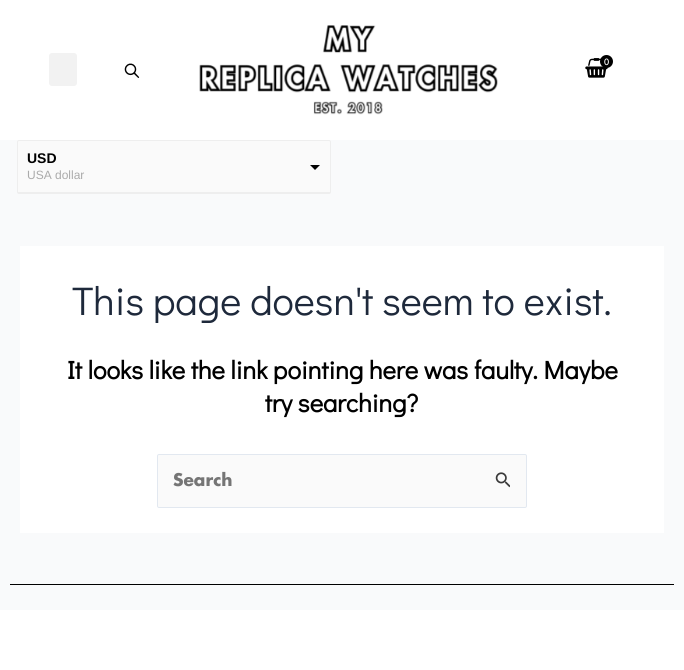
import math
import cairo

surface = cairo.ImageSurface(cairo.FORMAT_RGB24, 684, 670)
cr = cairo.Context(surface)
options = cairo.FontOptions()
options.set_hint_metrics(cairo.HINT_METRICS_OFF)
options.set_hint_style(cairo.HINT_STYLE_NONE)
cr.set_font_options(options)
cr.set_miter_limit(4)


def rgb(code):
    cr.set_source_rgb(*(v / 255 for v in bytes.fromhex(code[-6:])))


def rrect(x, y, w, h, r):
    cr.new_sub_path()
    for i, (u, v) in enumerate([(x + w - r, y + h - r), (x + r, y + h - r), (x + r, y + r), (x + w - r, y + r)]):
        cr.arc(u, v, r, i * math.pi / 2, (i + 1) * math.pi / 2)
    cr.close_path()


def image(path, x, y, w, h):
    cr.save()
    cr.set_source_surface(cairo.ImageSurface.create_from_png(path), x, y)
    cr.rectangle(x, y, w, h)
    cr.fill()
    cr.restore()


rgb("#f9fafb")
cr.paint()
rgb("#ffffff")
cr.rectangle(0, 0, 684, 140)
cr.fill()
rgb("#f2f2f2")
rrect(49, 53, 28, 33, 3)
cr.fill()
image("img/1.png", 199, 25, 299, 90)
image("img/2.png", 585, 58, 23, 20)
rgb("#000000")
cr.arc(606.5, 61.5, 6.5, 0, 2 * math.pi)
cr.fill()
image("img/3.png", 124, 63, 16, 15)
rgb("#eeeeee")
rrect(17.5, 140.5, 313, 53, 1.5)
cr.fill_preserve()
cr.set_line_width(1)
cr.stroke()
rgb("#fafafa")
cr.new_path()
cr.move_to(19, 141)
cr.line_to(329, 141)
cr.curve_to(329.5, 141, 330, 141.5, 330, 142)
cr.line_to(330, 192)
cr.line_to(18, 192)
cr.line_to(18, 142)
cr.curve_to(18, 141.5, 18.5, 141, 19, 141)
cr.close_path()
cr.fill()
rgb("#000000")
cr.new_path()
cr.move_to(310, 165)
cr.line_to(320, 165)
cr.line_to(315, 170)
cr.close_path()
cr.fill()
rgb("#ffffff")
cr.rectangle(20, 246, 644, 287)
cr.fill()
rgb("#fafafa")
rrect(157.5, 454.5, 369, 53, 1.5)
cr.fill_preserve()
rgb("#e2e8f0")
cr.stroke()
image("img/4.png", 495, 472, 15, 16)
rgb("#000000")
cr.rectangle(10, 584, 664, 1)
cr.fill()
rgb("#ffffff")
cr.rectangle(0, 610, 684, 60)
cr.fill()
cr.select_font_face("Didact Gothic", cairo.FONT_SLANT_NORMAL, cairo.FONT_WEIGHT_BOLD)
cr.set_font_size(9)
cr.move_to(604, 65)
cr.show_text("0")
cr.select_font_face("Liberation Sans", cairo.FONT_SLANT_NORMAL, cairo.FONT_WEIGHT_BOLD)
cr.set_font_size(14)
rgb("#000000")
cr.move_to(27, 163)
cr.show_text("USD")
cr.select_font_face("Liberation Sans")
cr.set_font_size(12)
rgb("#aaaaaa")
cr.move_to(27, 179)
cr.show_text("USA dollar")
cr.select_font_face("Didact Gothic")
cr.set_font_size(40)
rgb("#1e293b")
cr.move_to(72, 315)
cr.show_text("This page doesn't seem to exist.")
cr.select_font_face("Didact Gothic", cairo.FONT_SLANT_NORMAL, cairo.FONT_WEIGHT_BOLD)
cr.set_font_size(25.5)
rgb("#000000")
cr.move_to(67, 379)
cr.show_text("It looks like the link pointing here was faulty. Maybe")
cr.move_to(265, 412)
cr.show_text("try searching?")
cr.select_font_face("Futura", cairo.FONT_SLANT_NORMAL, cairo.FONT_WEIGHT_BOLD)
cr.set_font_size(17)
rgb("#757575")
cr.move_to(173, 486)
cr.show_text("Search")
surface.write_to_png("page.png")
